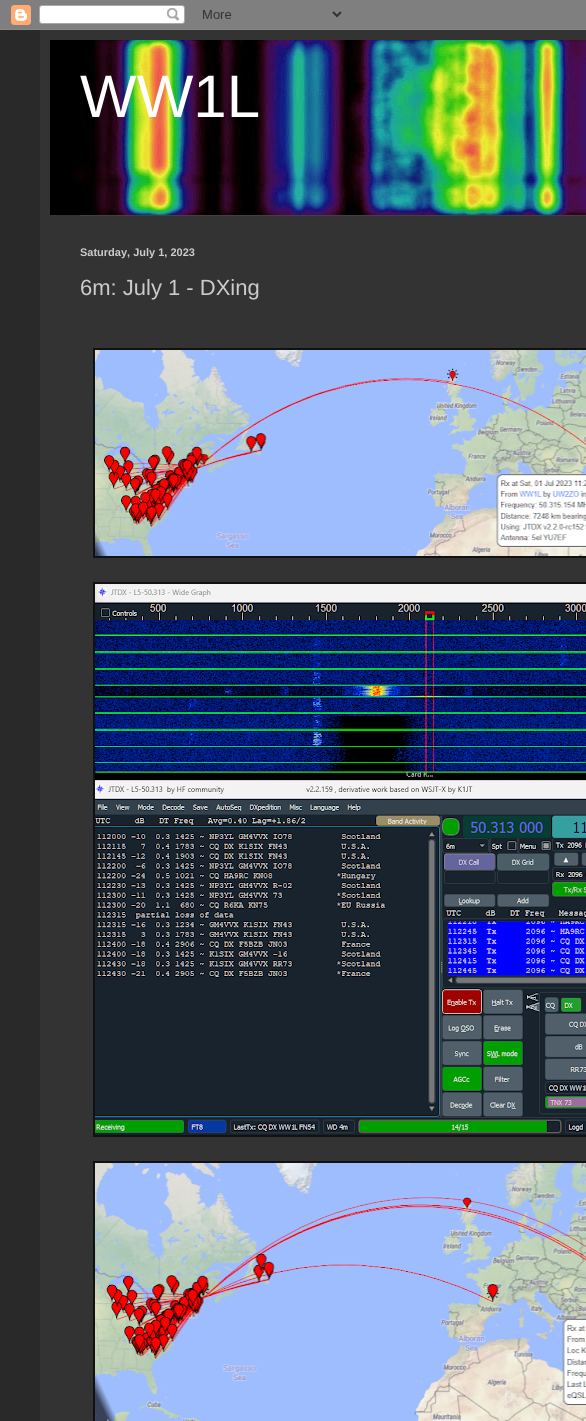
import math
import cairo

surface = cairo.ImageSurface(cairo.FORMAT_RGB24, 586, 1421)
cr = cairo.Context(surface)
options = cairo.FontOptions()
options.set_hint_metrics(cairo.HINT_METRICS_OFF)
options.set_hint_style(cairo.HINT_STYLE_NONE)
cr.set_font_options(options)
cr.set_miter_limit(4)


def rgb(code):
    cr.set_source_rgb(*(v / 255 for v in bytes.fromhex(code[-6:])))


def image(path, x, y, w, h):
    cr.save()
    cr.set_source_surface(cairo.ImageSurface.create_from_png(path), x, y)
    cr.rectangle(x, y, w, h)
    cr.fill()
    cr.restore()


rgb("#292929")
cr.paint()
image("img/1.png", 0, 0, 586, 30)
rgb("#333333")
cr.rectangle(40, 30, 546, 1391)
cr.fill()
image("img/2.png", 50, 40, 536, 175)
rgb("#404040")
cr.rectangle(80, 215, 506, 1)
cr.fill()
rgb("#111111")
cr.rectangle(93, 348, 493, 210)
cr.fill()
image("img/3.png", 95, 350, 491, 206)
cr.rectangle(93, 582, 493, 555)
cr.fill()
image("img/4.png", 95, 584, 491, 551)
cr.rectangle(93, 1161, 493, 260)
cr.fill()
image("img/5.png", 95, 1163, 491, 258)
cr.select_font_face("Liberation Sans")
cr.set_font_size(60)
rgb("#ffffff")
cr.move_to(80, 117)
cr.show_text("WW1L")
cr.select_font_face("Liberation Sans", cairo.FONT_SLANT_NORMAL, cairo.FONT_WEIGHT_BOLD)
cr.set_font_size(11)
rgb("#cccccc")
cr.move_to(80, 256)
cr.show_text("Saturday, July 1, 2023")
cr.select_font_face("Liberation Sans")
cr.set_font_size(22)
cr.move_to(80, 295)
cr.show_text("6m: July 1 - DXing")
surface.write_to_png("page.png")
